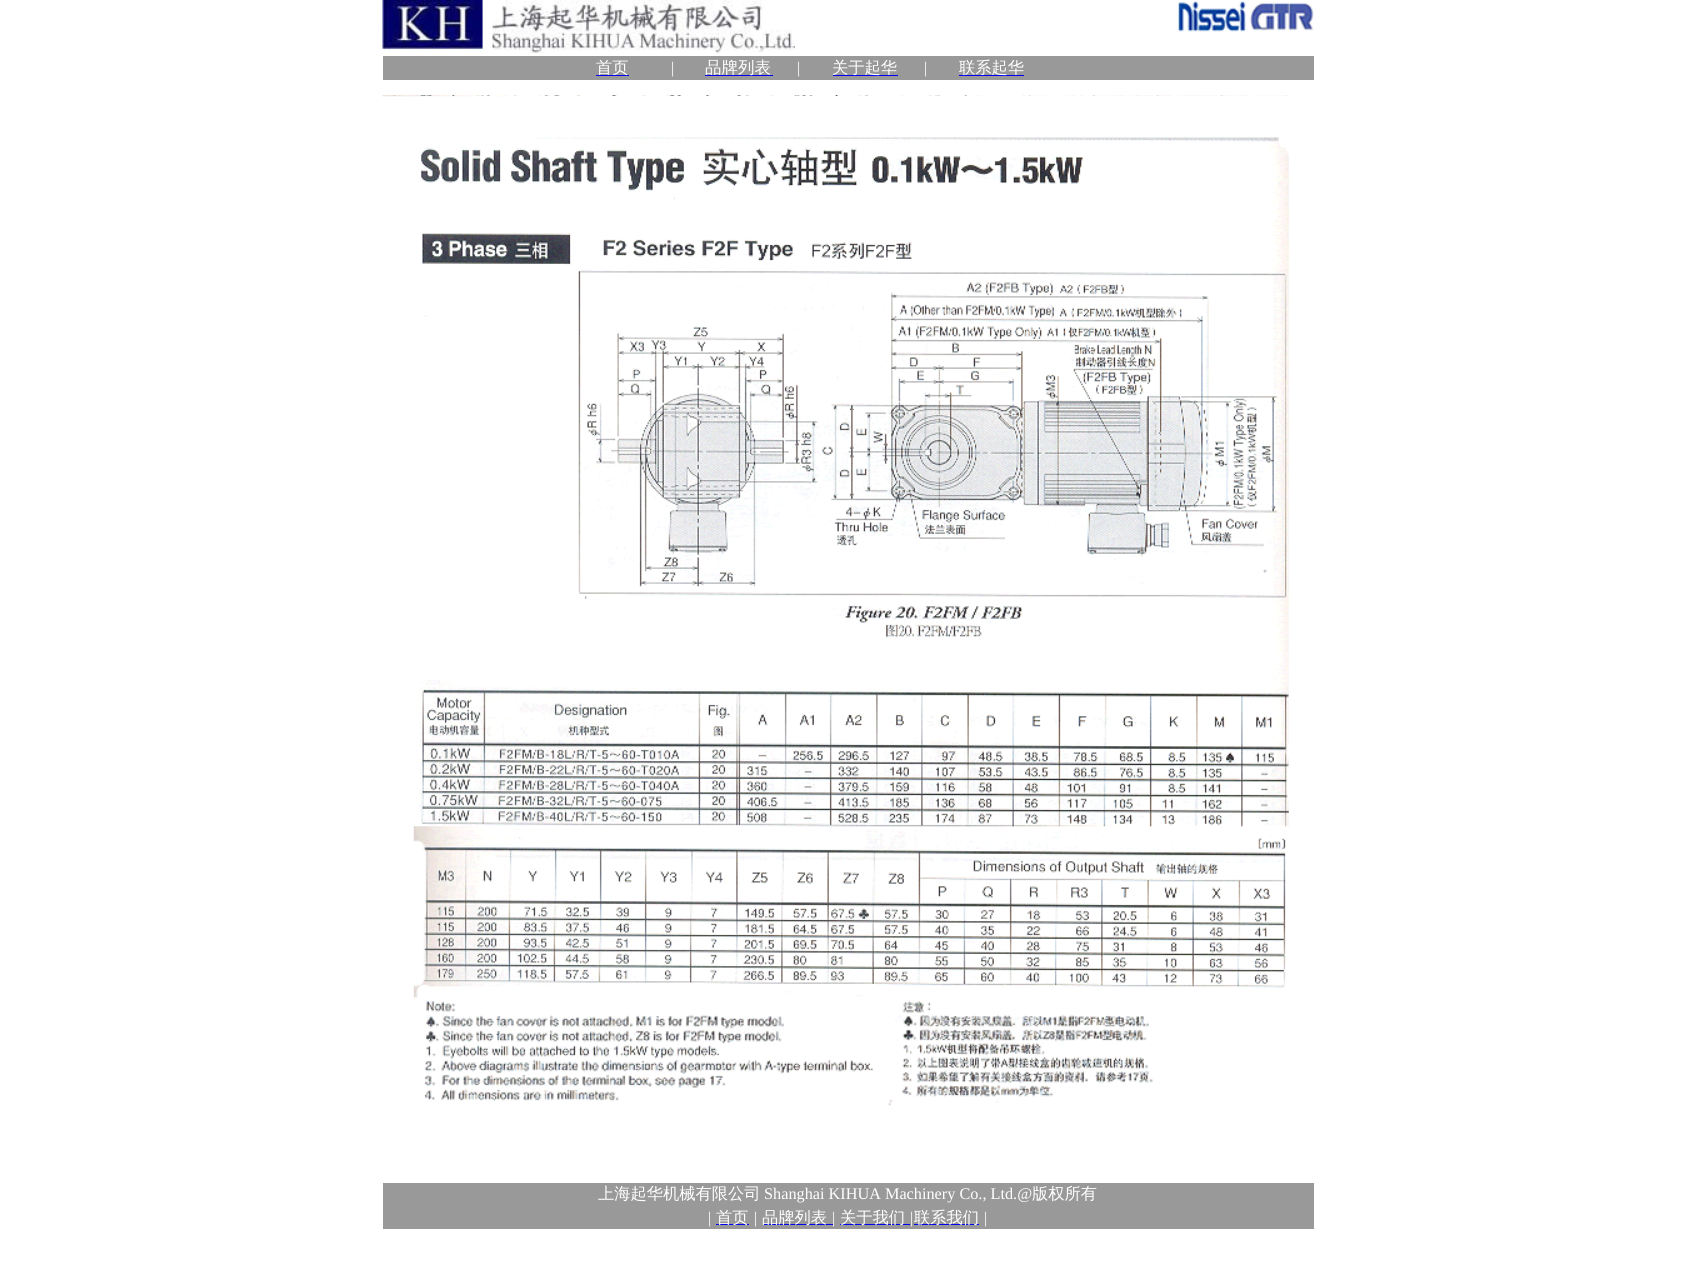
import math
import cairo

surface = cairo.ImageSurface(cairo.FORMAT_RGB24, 1694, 1275)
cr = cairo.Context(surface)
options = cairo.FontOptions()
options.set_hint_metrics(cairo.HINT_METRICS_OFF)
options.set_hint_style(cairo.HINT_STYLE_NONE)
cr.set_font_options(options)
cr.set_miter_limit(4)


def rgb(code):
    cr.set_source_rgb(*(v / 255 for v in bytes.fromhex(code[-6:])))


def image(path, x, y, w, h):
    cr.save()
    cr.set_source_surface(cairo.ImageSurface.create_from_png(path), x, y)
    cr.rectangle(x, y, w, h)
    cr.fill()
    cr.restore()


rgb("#ffffff")
cr.paint()
image("img/1.png", 382, 0, 413, 53)
image("img/2.png", 1178, 1, 136, 31)
for x, y, w, h, color in [
    (383, 56, 931, 24, "#999999"),
    (596, 75, 33, 1, "#0000ee"),
    (705, 75, 68, 1, "#0000ee"),
    (833, 75, 65, 1, "#0000ee"),
    (959, 75, 65, 1, "#0000ee"),
]:
    rgb(color)
    cr.rectangle(x, y, w, h)
    cr.fill()
image("img/3.png", 382, 95, 913, 2)
image("img/4.png", 413, 137, 876, 969)
for x, y, w, h, color in [
    (383, 1183, 931, 46, "#999999"),
    (716, 1224, 33, 1, "#0000ee"),
    (763, 1224, 70, 1, "#0000ee"),
    (840, 1224, 70, 1, "#0000ee"),
    (914, 1224, 65, 1, "#0000ee"),
]:
    rgb(color)
    cr.rectangle(x, y, w, h)
    cr.fill()
cr.select_font_face("WenQuanYi Zen Hei Medium")
cr.set_font_size(16.25)
rgb("#ffffff")
cr.move_to(596, 73)
cr.show_text("首页")
cr.select_font_face("Liberation Serif")
cr.move_to(671, 73)
cr.show_text("|")
cr.select_font_face("WenQuanYi Zen Hei Medium")
cr.set_font_size(16.5)
cr.move_to(705, 73)
cr.show_text("品牌列表")
cr.select_font_face("Liberation Serif")
cr.set_font_size(16.25)
cr.move_to(797, 73)
cr.show_text("|")
cr.select_font_face("WenQuanYi Zen Hei Medium")
cr.move_to(832, 73)
cr.show_text("关于起华")
cr.select_font_face("Liberation Serif")
cr.move_to(924, 73)
cr.show_text("|")
cr.select_font_face("WenQuanYi Zen Hei Medium")
cr.move_to(959, 73)
cr.show_text("联系起华")
cr.move_to(598, 1199)
cr.show_text("上海起华机械有限公司")
cr.select_font_face("Liberation Serif")
cr.move_to(764, 1199)
cr.show_text("Shanghai KIHUA Machinery Co., Ltd.@")
cr.select_font_face("WenQuanYi Zen Hei Medium")
cr.move_to(1032, 1199)
cr.show_text("版权所有")
cr.select_font_face("Liberation Serif")
cr.move_to(708, 1223)
cr.show_text("|")
cr.select_font_face("WenQuanYi Zen Hei Medium")
cr.move_to(716, 1223)
cr.show_text("首页")
cr.select_font_face("Liberation Serif")
cr.move_to(754, 1223)
cr.show_text("|")
cr.select_font_face("WenQuanYi Zen Hei Medium")
cr.move_to(762, 1223)
cr.show_text("品牌列表")
cr.select_font_face("Liberation Serif")
cr.move_to(832, 1223)
cr.show_text("|")
cr.select_font_face("WenQuanYi Zen Hei Medium")
cr.move_to(840, 1223)
cr.show_text("关于我们")
cr.select_font_face("Liberation Serif")
cr.move_to(910, 1223)
cr.show_text("|")
cr.select_font_face("WenQuanYi Zen Hei Medium")
cr.move_to(914, 1223)
cr.show_text("联系我们")
cr.select_font_face("Liberation Serif")
cr.move_to(984, 1223)
cr.show_text("|")
surface.write_to_png("page.png")
